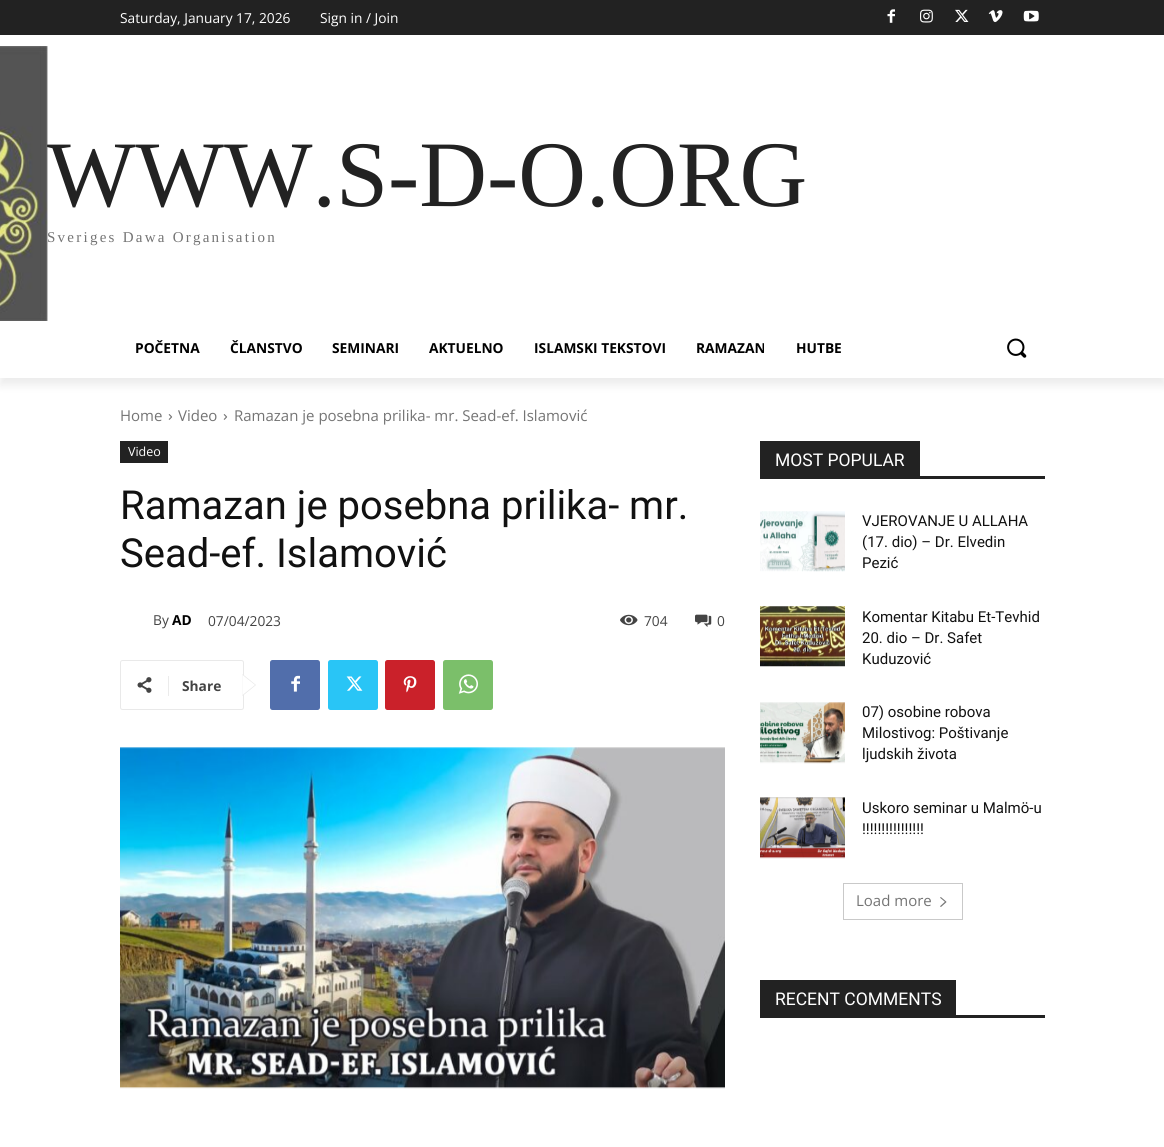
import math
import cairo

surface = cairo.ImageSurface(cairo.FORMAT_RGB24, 1164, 1147)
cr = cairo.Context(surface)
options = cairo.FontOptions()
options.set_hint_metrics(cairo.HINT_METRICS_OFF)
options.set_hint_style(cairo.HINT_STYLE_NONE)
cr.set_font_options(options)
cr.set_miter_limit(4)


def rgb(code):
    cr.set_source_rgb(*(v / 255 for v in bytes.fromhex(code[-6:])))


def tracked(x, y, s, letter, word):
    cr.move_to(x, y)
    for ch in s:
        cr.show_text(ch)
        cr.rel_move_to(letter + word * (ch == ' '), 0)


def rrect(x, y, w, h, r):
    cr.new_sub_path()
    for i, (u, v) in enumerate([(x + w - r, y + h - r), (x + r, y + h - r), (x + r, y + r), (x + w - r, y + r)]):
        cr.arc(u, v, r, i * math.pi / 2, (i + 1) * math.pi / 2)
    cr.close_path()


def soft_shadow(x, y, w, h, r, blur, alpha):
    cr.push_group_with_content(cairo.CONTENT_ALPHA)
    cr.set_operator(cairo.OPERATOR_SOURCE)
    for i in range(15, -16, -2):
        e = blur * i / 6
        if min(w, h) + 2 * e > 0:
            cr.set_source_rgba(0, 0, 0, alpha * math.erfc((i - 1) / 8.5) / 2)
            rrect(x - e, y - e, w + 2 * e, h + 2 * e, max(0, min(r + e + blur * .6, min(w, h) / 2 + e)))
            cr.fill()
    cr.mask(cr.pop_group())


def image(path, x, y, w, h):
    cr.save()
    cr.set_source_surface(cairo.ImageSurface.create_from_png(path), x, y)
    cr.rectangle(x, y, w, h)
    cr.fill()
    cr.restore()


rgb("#ffffff")
cr.paint()
rgb("#222222")
cr.rectangle(0, 0, 1164, 35)
cr.fill()
image("img/1.png", 887, 9, 8, 14)
image("img/2.png", 920, 9, 13, 14)
image("img/3.png", 955, 9, 14, 13)
image("img/4.png", 988, 10, 15, 13)
image("img/5.png", 1023, 10, 16, 12)
image("img/6.png", 0, 46, 48, 275)
cr.save()
cr.set_fill_rule(cairo.FILL_RULE_EVEN_ODD)
cr.new_path()
cr.move_to(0, 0)
cr.line_to(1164, 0)
cr.line_to(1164, 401)
cr.line_to(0, 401)
cr.close_path()
cr.move_to(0, 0)
cr.line_to(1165, 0)
cr.line_to(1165, 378)
cr.line_to(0, 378)
cr.close_path()
cr.clip()
rgb("#000000")
soft_shadow(0, 8, 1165, 377, 0, 5, 0.08)
cr.restore()
image("img/7.png", 1007, 338, 20, 20)
image("img/8.png", 168, 414, 5, 6)
image("img/8.png", 223, 414, 5, 6)
cr.rectangle(120, 441, 48, 22)
cr.fill()
image("img/9.png", 620, 614, 18, 12)
image("img/10.png", 695, 614, 17, 13)
rrect(120.5, 660.5, 123, 49, 2)
rgb("#e9e9e9")
cr.set_line_width(1)
cr.stroke()
cr.new_path()
cr.move_to(242.5, 696)
cr.line_to(242.5, 674)
cr.line_to(256, 685)
cr.close_path()
cr.fill()
image("img/11.png", 137, 677, 15, 16)
rgb("#ebebeb")
cr.rectangle(168, 676, 1, 20)
cr.fill()
rgb("#ffffff")
cr.new_path()
cr.move_to(242.5, 695)
cr.line_to(242.5, 675)
cr.line_to(255, 685)
cr.close_path()
cr.fill()
rgb("#516eab")
rrect(270, 660, 50, 50, 2.5)
cr.fill()
image("img/12.png", 291, 675, 9, 17)
rgb("#29c5f6")
rrect(328, 660, 50, 50, 2.5)
cr.fill()
image("img/13.png", 346, 676, 17, 15)
rgb("#ca212a")
rrect(385, 660, 50, 50, 2.5)
cr.fill()
image("img/14.png", 403, 676, 14, 17)
rgb("#7bbf6a")
rrect(443, 660, 50, 50, 2.5)
cr.fill()
image("img/15.png", 458, 674, 20, 20)
image("img/16.png", 120, 747, 605, 342)
rgb("#222222")
cr.rectangle(760, 476, 285, 3)
cr.fill()
cr.rectangle(760, 441, 160, 35)
cr.fill()
image("img/17.png", 760, 511, 85, 61)
image("img/18.png", 760, 606, 85, 61)
image("img/19.png", 760, 702, 85, 62)
image("img/20.png", 760, 797, 85, 62)
cr.rectangle(843.5, 883.5, 119, 36)
rgb("#c9c9c9")
cr.stroke()
image("img/21.png", 940, 897, 7, 10)
rgb("#222222")
cr.rectangle(760, 1015, 285, 3)
cr.fill()
cr.rectangle(760, 980, 196, 35)
cr.fill()
cr.select_font_face("Open Sans")
cr.set_font_size(13.75)
rgb("#ffffff")
cr.move_to(120, 23)
cr.show_text("Saturday, January 17, 2026")
cr.move_to(320, 23)
cr.show_text("Sign in / Join")
cr.select_font_face("Liberation Serif")
cr.set_font_size(93.75)
rgb("#222222")
cr.move_to(47, 206)
cr.show_text("WWW.S-D-O.ORG")
cr.set_font_size(15)
rgb("#747474")
tracked(47, 242, "Sveriges Dawa Organisation", 2.25, 0)
cr.select_font_face("Open Sans", cairo.FONT_SLANT_NORMAL, cairo.FONT_WEIGHT_BOLD)
cr.set_font_size(13.75)
rgb("#000000")
for x, y, s in [
    (135, 353, "POČETNA"),
    (230, 353, "ČLANSTVO"),
    (332, 353, "SEMINARI"),
    (429, 353, "AKTUELNO"),
    (534, 353, "ISLAMSKI TEKSTOVI"),
    (696, 353, "RAMAZAN"),
    (796, 353, "HUTBE"),
]:
    cr.move_to(x, y)
    cr.show_text(s)
cr.select_font_face("Open Sans")
cr.set_font_size(15)
rgb("#747474")
for x, y, s in [
    (120, 421, "Home"),
    (178, 421, "Video"),
    (234, 421, "Ramazan je posebna prilika- mr. Sead-ef. Islamović"),
]:
    cr.move_to(x, y)
    cr.show_text(s)
cr.set_font_size(12.5)
rgb("#ffffff")
cr.move_to(128, 456)
cr.show_text("Video")
cr.select_font_face("Roboto")
cr.set_font_size(40)
rgb("#111111")
cr.move_to(120, 519)
cr.show_text("Ramazan je posebna prilika- mr.")
cr.move_to(120, 567)
cr.show_text("Sead-ef. Islamović")
cr.select_font_face("Open Sans")
cr.set_font_size(13.75)
rgb("#444444")
cr.move_to(153, 625)
cr.show_text("By")
cr.select_font_face("Open Sans", cairo.FONT_SLANT_NORMAL, cairo.FONT_WEIGHT_BOLD)
rgb("#000000")
cr.move_to(172, 625)
cr.show_text("AD")
cr.select_font_face("Open Sans")
rgb("#444444")
for x, y, s in [
    (208, 626, "07/04/2023"),
    (644, 626, "704"),
    (717, 626, "0"),
]:
    cr.move_to(x, y)
    cr.show_text(s)
cr.select_font_face("Open Sans", cairo.FONT_SLANT_NORMAL, cairo.FONT_WEIGHT_BOLD)
cr.move_to(182, 691)
cr.show_text("Share")
cr.select_font_face("Roboto")
cr.set_font_size(17.5)
rgb("#ffffff")
cr.move_to(775, 466)
cr.show_text("MOST POPULAR")
cr.set_font_size(15)
rgb("#111111")
for x, y, s in [
    (862, 526, "VJEROVANJE U ALLAHA"),
    (862, 547, "(17. dio) – Dr. Elvedin"),
    (862, 568, "Pezić"),
    (862, 622, "Komentar Kitabu Et-Tevhid"),
    (862, 643, "20. dio – Dr. Safet"),
    (862, 664, "Kuduzović"),
    (862, 717, "07) osobine robova"),
    (862, 738, "Milostivog: Poštivanje"),
    (862, 759, "ljudskih života"),
    (862, 813, "Uskoro seminar u Malmö-u"),
    (862, 834, "!!!!!!!!!!!!!!!!"),
]:
    cr.move_to(x, y)
    cr.show_text(s)
cr.select_font_face("Open Sans")
rgb("#747474")
cr.move_to(856, 906)
cr.show_text("Load more")
cr.select_font_face("Roboto")
cr.set_font_size(17.5)
rgb("#ffffff")
cr.move_to(775, 1005)
cr.show_text("RECENT COMMENTS")
surface.write_to_png("page.png")
